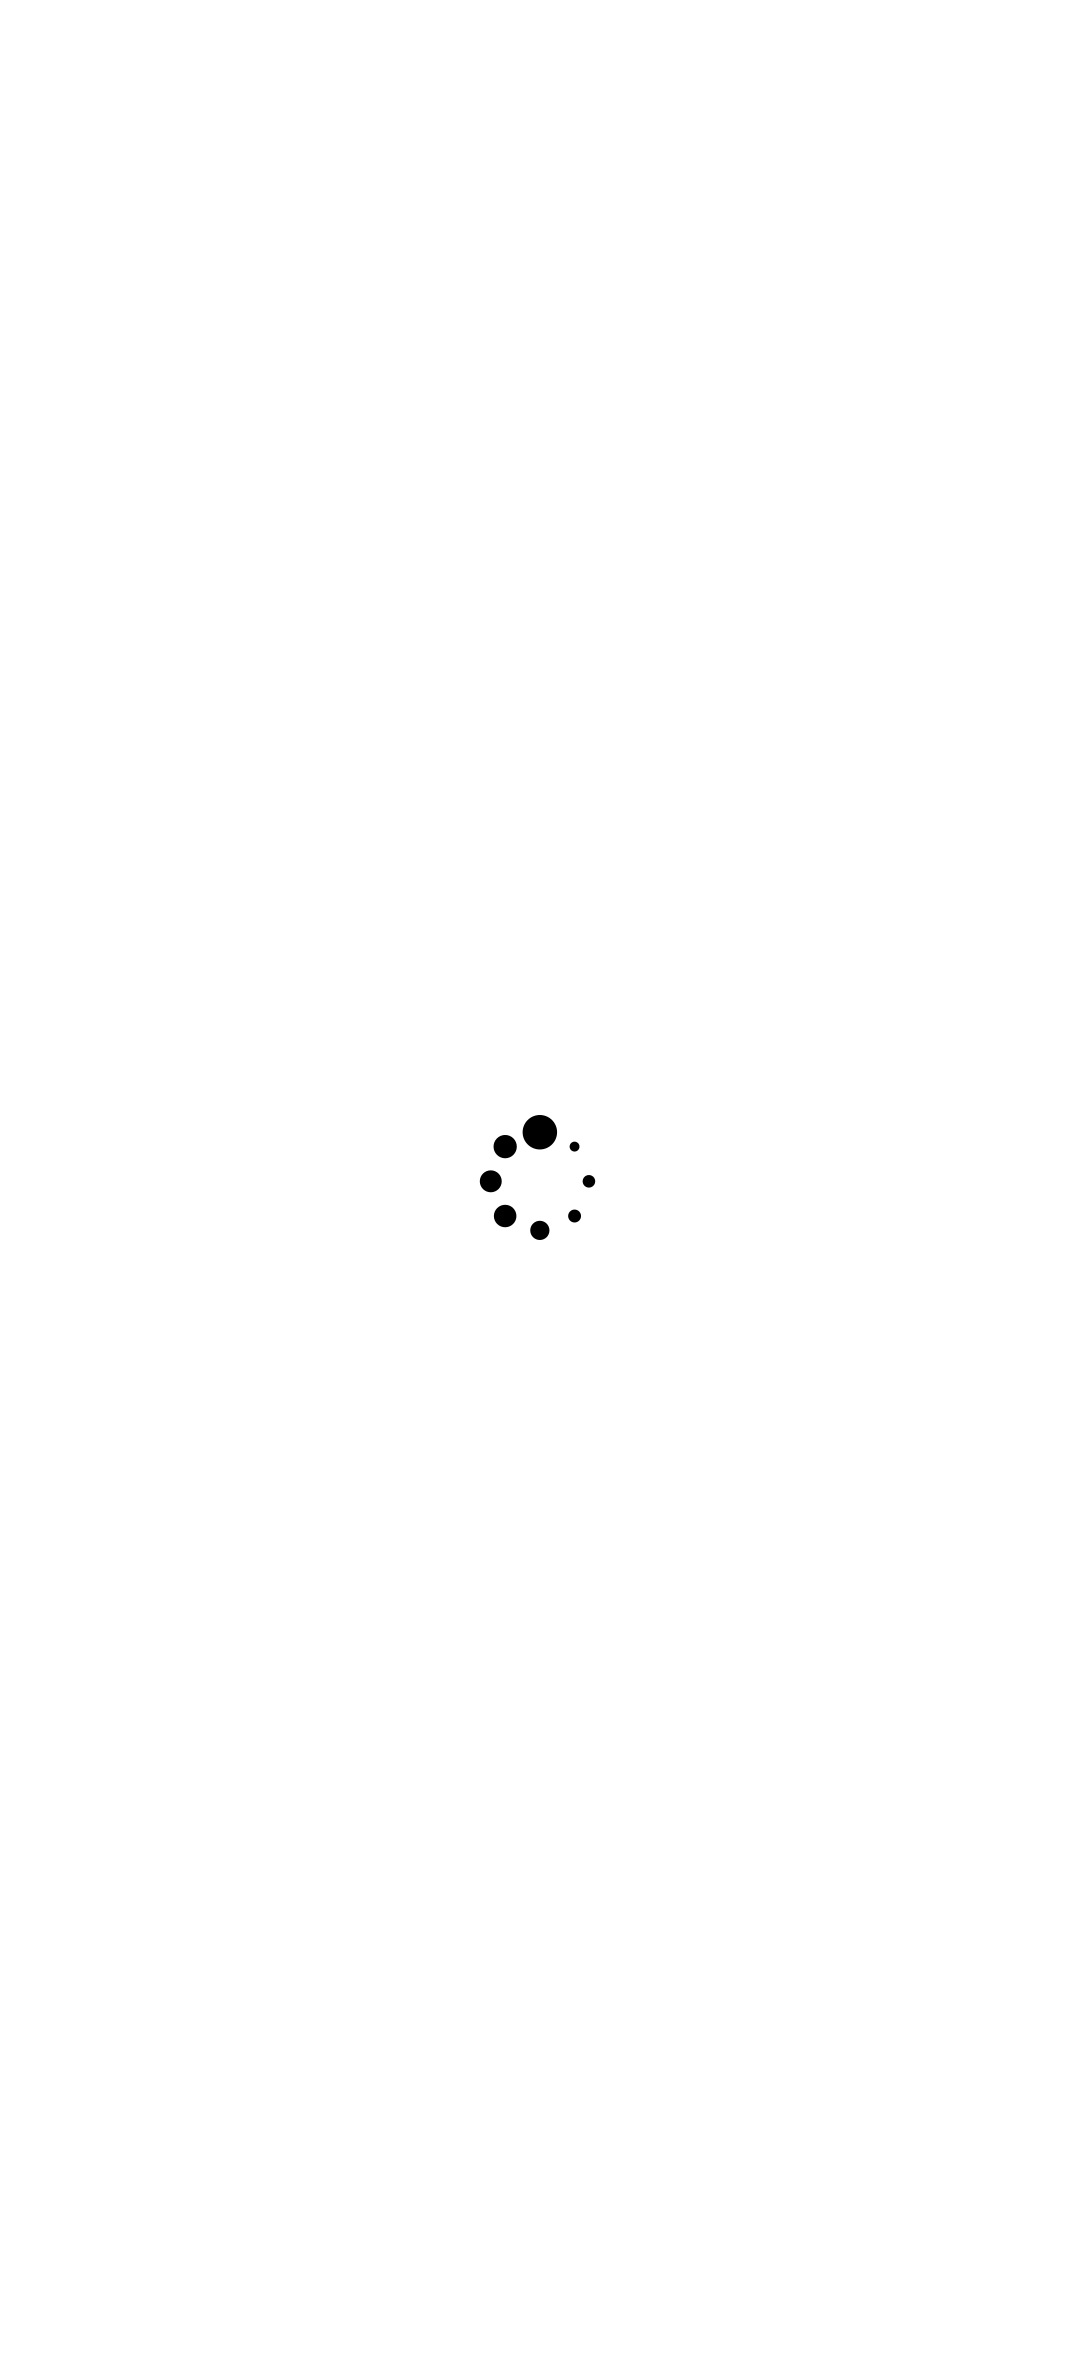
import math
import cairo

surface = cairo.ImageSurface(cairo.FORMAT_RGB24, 1075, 2354)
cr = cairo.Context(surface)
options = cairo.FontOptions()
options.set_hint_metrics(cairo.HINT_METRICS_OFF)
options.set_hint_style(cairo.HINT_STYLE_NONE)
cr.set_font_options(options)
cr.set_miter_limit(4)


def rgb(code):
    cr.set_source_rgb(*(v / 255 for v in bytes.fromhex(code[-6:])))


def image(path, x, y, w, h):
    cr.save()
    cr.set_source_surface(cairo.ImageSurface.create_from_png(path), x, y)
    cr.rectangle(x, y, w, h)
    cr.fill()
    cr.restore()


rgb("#ffffff")
cr.paint()
image("img/1.png", 479, 1115, 117, 125)
surface.write_to_png("page.png")
